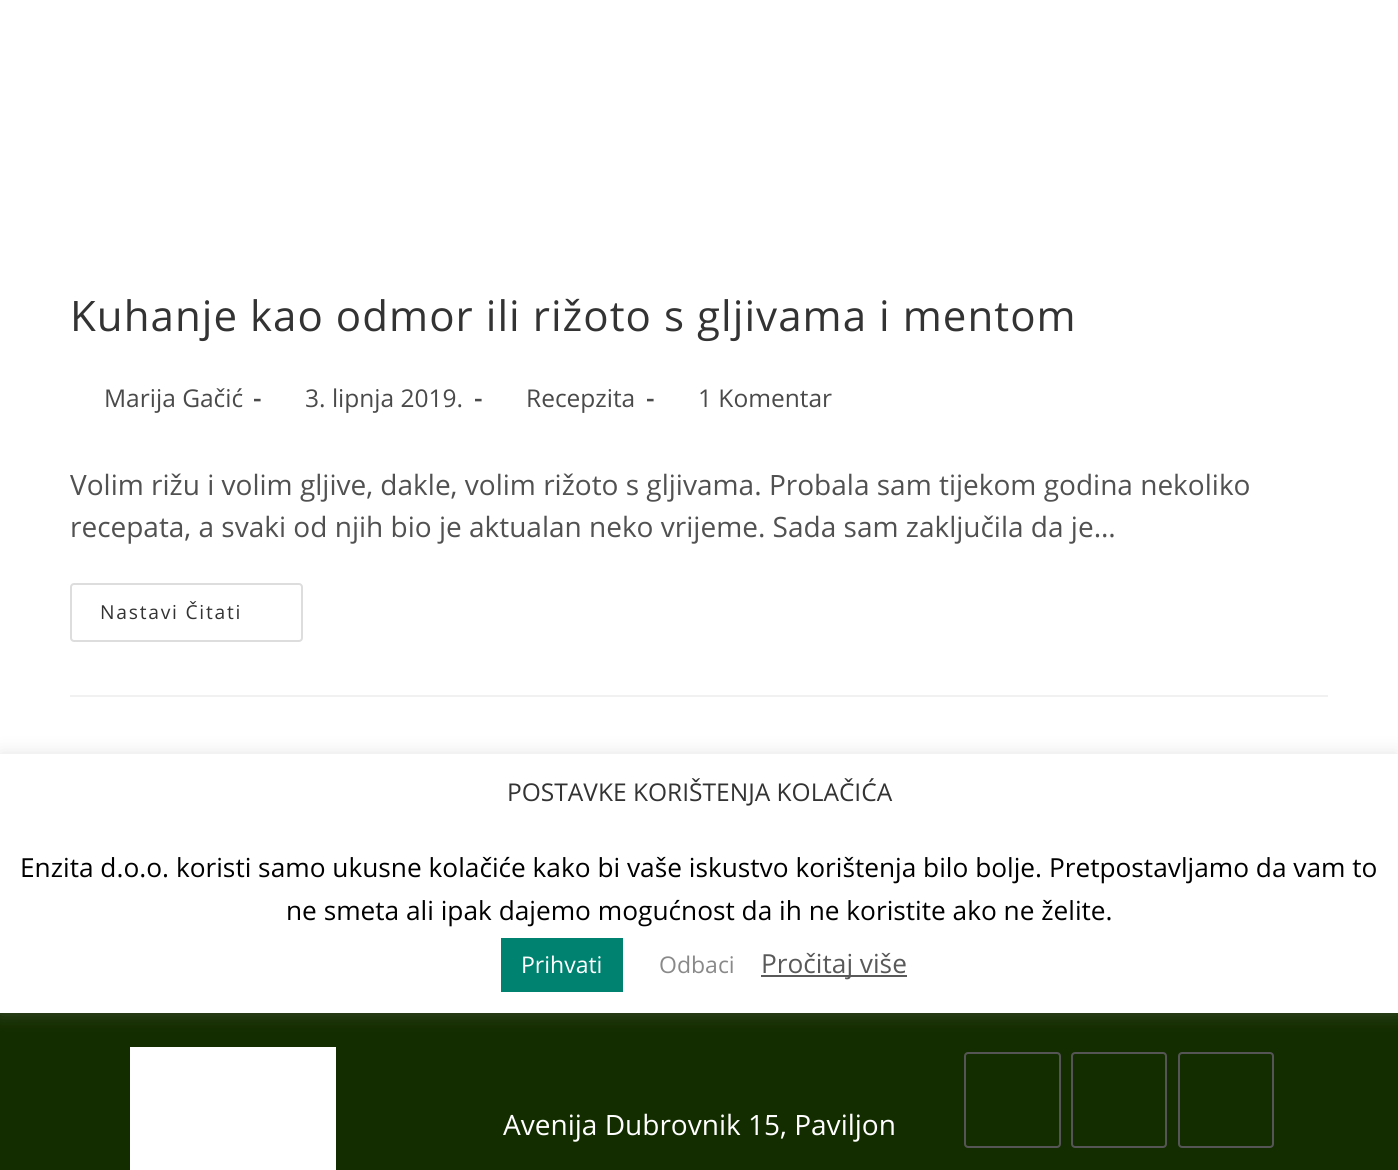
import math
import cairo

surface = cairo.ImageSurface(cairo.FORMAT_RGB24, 1398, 1170)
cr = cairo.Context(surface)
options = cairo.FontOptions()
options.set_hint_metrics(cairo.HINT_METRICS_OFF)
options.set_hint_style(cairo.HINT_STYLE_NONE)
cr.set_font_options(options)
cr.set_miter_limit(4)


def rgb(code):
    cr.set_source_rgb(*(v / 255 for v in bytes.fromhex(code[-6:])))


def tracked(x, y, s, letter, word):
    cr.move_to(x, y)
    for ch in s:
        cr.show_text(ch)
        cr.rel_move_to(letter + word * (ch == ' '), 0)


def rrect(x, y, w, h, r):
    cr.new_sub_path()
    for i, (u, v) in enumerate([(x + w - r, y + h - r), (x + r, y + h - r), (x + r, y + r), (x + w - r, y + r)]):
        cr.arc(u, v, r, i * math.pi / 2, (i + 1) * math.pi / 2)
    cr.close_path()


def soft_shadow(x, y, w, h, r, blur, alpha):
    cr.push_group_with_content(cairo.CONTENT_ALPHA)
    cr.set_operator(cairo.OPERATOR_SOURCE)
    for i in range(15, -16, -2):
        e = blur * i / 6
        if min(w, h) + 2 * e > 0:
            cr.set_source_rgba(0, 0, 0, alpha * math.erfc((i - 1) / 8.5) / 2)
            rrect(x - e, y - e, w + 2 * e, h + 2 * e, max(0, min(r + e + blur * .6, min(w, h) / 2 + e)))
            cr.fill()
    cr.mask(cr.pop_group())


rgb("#ffffff")
cr.paint()
rgb("#142d00")
cr.rectangle(0, 1013, 1398, 157)
cr.fill()
rgb("#ffffff")
cr.rectangle(130, 1047, 206, 123)
cr.fill()
rrect(965, 1053, 95, 94, 3)
rgb("#555555")
cr.stroke()
rrect(1072, 1053, 94, 94, 3)
cr.stroke()
rrect(1179, 1053, 94, 94, 3)
cr.stroke()
cr.save()
cr.rectangle(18, 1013, 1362, 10)
cr.clip()
rgb("#000000")
soft_shadow(0, -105, 1398, 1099, 0, 35, 0.1)
cr.restore()
rgb("#f1f1f1")
cr.rectangle(70, 695, 1258, 2)
cr.fill()
rrect(71, 584, 231, 57, 3)
rgb("#dddddd")
cr.stroke()
rgb("#acabab")
soft_shadow(0, 753, 1398, 259, 0, 9, 0.3)
for x, y, w, h, color in [
    (0, 754, 1398, 259, "#ffffff"),
    (501, 938, 122, 54, "#008270"),
    (761, 975, 146, 2, "#595959"),
]:
    rgb(color)
    cr.rectangle(x, y, w, h)
    cr.fill()
cr.select_font_face("Open Sans")
cr.set_font_size(42)
rgb("#333333")
tracked(70, 331, "Kuhanje kao odmor ili rižoto s gljivama i mentom", 1.05, 0)
cr.set_font_size(24.5)
rgb("#4a4a4a")
cr.move_to(104, 407)
cr.show_text("Marija Gačić")
cr.select_font_face("Open Sans", cairo.FONT_SLANT_NORMAL, cairo.FONT_WEIGHT_BOLD)
cr.move_to(253, 407)
cr.show_text("-")
cr.select_font_face("Open Sans")
cr.move_to(305, 407)
cr.show_text("3. lipnja 2019.")
cr.select_font_face("Open Sans", cairo.FONT_SLANT_NORMAL, cairo.FONT_WEIGHT_BOLD)
cr.move_to(474, 407)
cr.show_text("-")
cr.select_font_face("Open Sans")
cr.move_to(526, 407)
cr.show_text("Recepzita")
cr.select_font_face("Open Sans", cairo.FONT_SLANT_NORMAL, cairo.FONT_WEIGHT_BOLD)
cr.move_to(646, 407)
cr.show_text("-")
cr.select_font_face("Open Sans")
cr.move_to(698, 407)
cr.show_text("1 Komentar")
cr.set_font_size(28)
rgb("#515151")
cr.move_to(70, 495)
cr.show_text("Volim rižu i volim gljive, dakle, volim rižoto s gljivama. Probala sam tijekom godina nekoliko")
cr.move_to(70, 537)
cr.show_text("recepata, a svaki od njih bio je aktualan neko vrijeme. Sada sam zaključila da je…")
cr.set_font_size(19.25)
rgb("#333333")
tracked(100, 619, "Nastavi Čitati", 1.75, 0)
cr.set_font_size(28)
rgb("#ffffff")
cr.move_to(503, 1135)
cr.show_text("Avenija Dubrovnik 15, Paviljon")
cr.set_font_size(24.5)
rgb("#333333")
cr.move_to(507, 801)
cr.show_text("POSTAVKE KORIŠTENJA KOLAČIĆA")
cr.set_font_size(26.25)
rgb("#000000")
cr.move_to(20, 877)
cr.show_text("Enzita d.o.o. koristi samo ukusne kolačiće kako bi vaše iskustvo korištenja bilo bolje. Pretpostavljamo da vam to")
cr.move_to(286, 920)
cr.show_text("ne smeta ali ipak dajemo mogućnost da ih ne koristite ako ne želite.")
cr.set_font_size(23)
rgb("#ffffff")
cr.move_to(521, 973)
cr.show_text("Prihvati")
rgb("#898989")
cr.move_to(659, 973)
cr.show_text("Odbaci")
cr.set_font_size(26.25)
rgb("#595959")
cr.move_to(761, 973)
cr.show_text("Pročitaj više")
surface.write_to_png("page.png")
